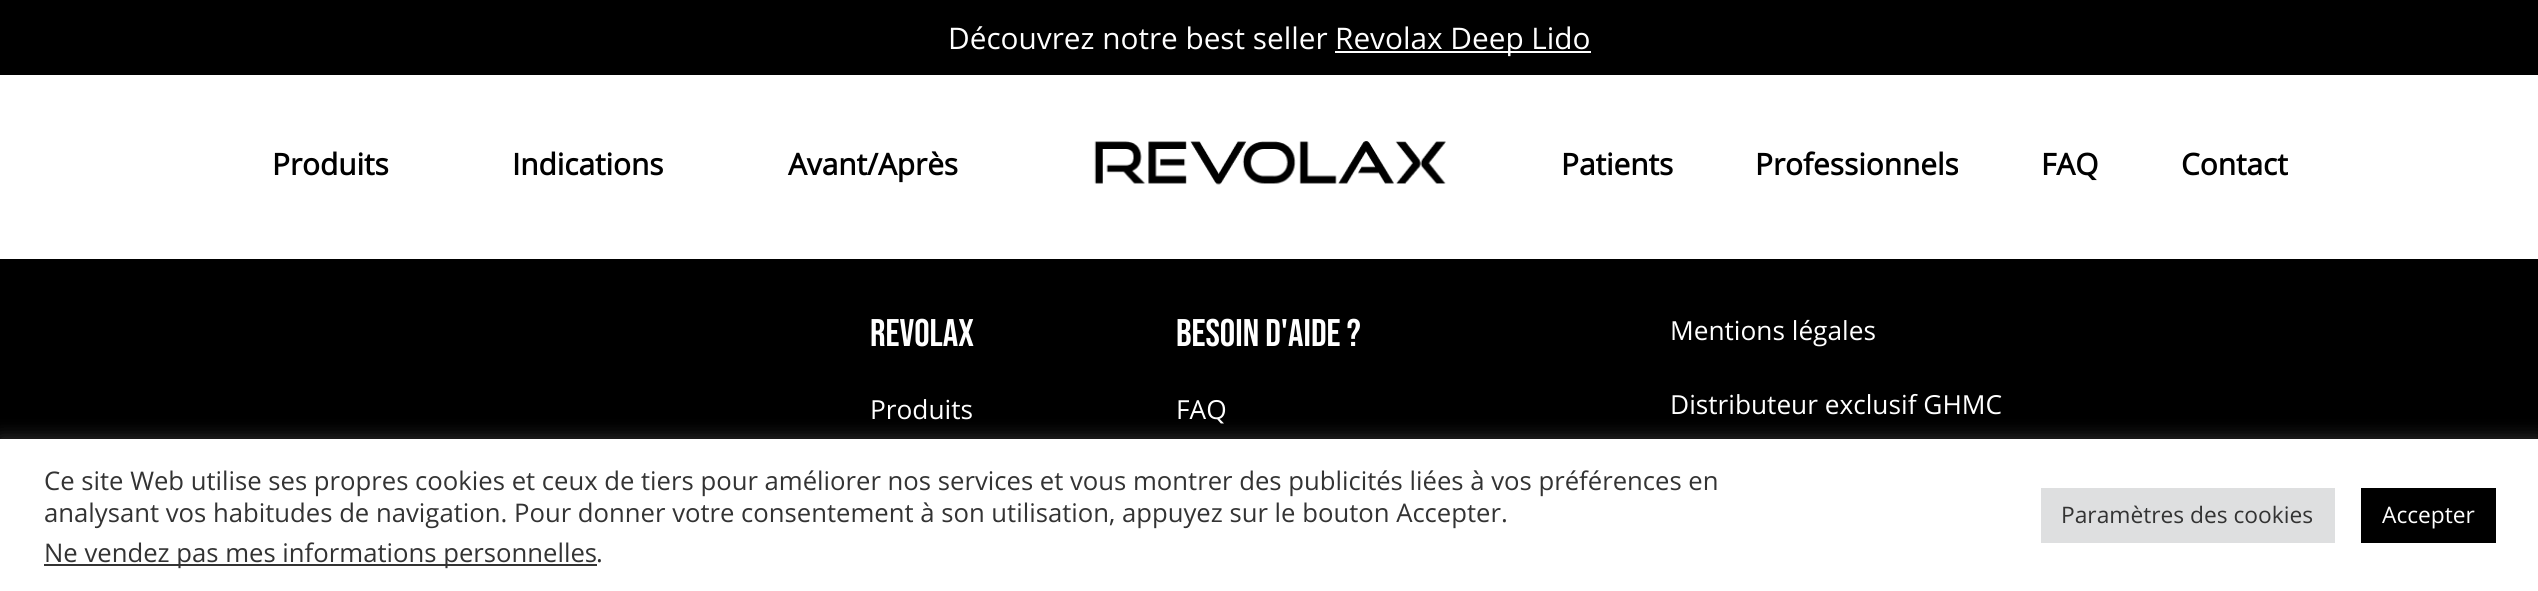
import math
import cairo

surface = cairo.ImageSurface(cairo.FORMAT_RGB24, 2538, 591)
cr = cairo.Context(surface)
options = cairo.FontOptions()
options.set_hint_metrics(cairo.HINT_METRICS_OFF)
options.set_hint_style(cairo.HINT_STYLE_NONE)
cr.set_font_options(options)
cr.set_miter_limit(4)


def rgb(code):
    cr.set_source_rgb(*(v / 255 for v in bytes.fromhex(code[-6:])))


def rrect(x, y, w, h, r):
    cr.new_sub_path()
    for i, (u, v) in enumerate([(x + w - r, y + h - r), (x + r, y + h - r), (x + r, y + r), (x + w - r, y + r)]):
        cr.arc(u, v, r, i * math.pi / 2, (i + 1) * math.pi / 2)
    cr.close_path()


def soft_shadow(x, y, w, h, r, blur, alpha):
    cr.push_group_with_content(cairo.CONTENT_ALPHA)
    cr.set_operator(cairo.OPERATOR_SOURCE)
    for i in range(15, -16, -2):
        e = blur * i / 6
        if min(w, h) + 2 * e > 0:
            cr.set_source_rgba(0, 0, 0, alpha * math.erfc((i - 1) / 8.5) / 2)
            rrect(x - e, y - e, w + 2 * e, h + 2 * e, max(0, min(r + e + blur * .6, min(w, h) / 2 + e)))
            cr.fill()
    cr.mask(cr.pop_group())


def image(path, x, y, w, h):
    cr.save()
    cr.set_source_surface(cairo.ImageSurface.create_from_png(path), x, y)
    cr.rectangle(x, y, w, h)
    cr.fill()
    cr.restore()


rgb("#ffffff")
cr.paint()
rgb("#000000")
cr.rectangle(0, 0, 2538, 75)
cr.fill()
rgb("#ffffff")
cr.rectangle(1335, 51, 256, 2)
cr.fill()
image("img/1.png", 1094, 141, 352, 44)
rgb("#000000")
cr.rectangle(0, 259, 2538, 180)
cr.fill()
rgb("#acabab")
soft_shadow(0, 438, 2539, 152, 0, 9, 0.3)
for x, y, w, h, color in [
    (0, 439, 2538, 152, "#ffffff"),
    (44, 564, 553, 2, "#333333"),
    (2041, 488, 294, 55, "#dedfe0"),
    (2361, 488, 135, 55, "#000000"),
]:
    rgb(color)
    cr.rectangle(x, y, w, h)
    cr.fill()
cr.select_font_face("Open Sans")
cr.set_font_size(29.75)
rgb("#ffffff")
cr.move_to(948, 49)
cr.show_text("Découvrez notre best seller")
cr.move_to(1335, 49)
cr.show_text("Revolax Deep Lido")
cr.select_font_face("Open Sans", cairo.FONT_SLANT_NORMAL, cairo.FONT_WEIGHT_BOLD)
rgb("#000000")
for x, y, s in [
    (272, 175, "Produits"),
    (512, 175, "Indications"),
    (788, 175, "Avant/Après"),
    (1561, 175, "Patients"),
    (1755, 175, "Professionnels"),
    (2041, 175, "FAQ"),
    (2181, 175, "Contact"),
]:
    cr.move_to(x, y)
    cr.show_text(s)
cr.select_font_face("Bebas Neue")
cr.set_font_size(38.5)
rgb("#ffffff")
cr.move_to(870, 346)
cr.show_text("REVOLAX")
cr.select_font_face("Open Sans")
cr.set_font_size(26.25)
cr.move_to(870, 419)
cr.show_text("Produits")
cr.select_font_face("Bebas Neue")
cr.set_font_size(38.5)
cr.move_to(1176, 346)
cr.show_text("Besoin d'aide ?")
cr.select_font_face("Open Sans")
cr.set_font_size(26.25)
for x, y, s in [
    (1176, 419, "FAQ"),
    (1670, 340, "Mentions légales"),
    (1670, 414, "Distributeur exclusif GHMC"),
]:
    cr.move_to(x, y)
    cr.show_text(s)
cr.set_font_size(25.67)
rgb("#333333")
for x, y, s in [
    (44, 490, "Ce site Web utilise ses propres cookies et ceux de tiers pour améliorer nos services et vous montrer des publicités liées à vos préférences en"),
    (44, 522, "analysant vos habitudes de navigation. Pour donner votre consentement à son utilisation, appuyez sur le bouton Accepter."),
    (44, 562, "Ne vendez pas mes informations personnelles"),
    (596, 562, "."),
]:
    cr.move_to(x, y)
    cr.show_text(s)
cr.set_font_size(22.75)
cr.move_to(2061, 523)
cr.show_text("Paramètres des cookies")
rgb("#ffffff")
cr.move_to(2382, 523)
cr.show_text("Accepter")
surface.write_to_png("page.png")
